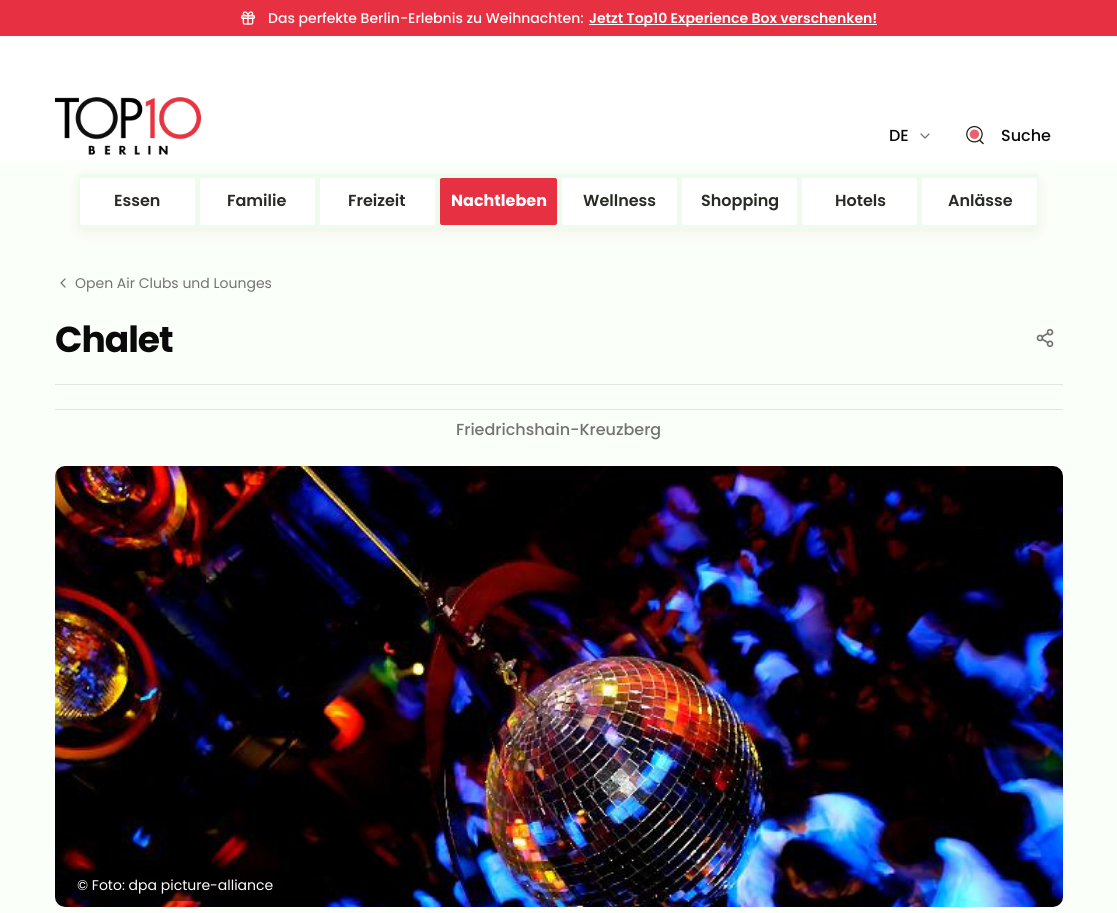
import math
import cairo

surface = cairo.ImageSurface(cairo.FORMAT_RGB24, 1117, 913)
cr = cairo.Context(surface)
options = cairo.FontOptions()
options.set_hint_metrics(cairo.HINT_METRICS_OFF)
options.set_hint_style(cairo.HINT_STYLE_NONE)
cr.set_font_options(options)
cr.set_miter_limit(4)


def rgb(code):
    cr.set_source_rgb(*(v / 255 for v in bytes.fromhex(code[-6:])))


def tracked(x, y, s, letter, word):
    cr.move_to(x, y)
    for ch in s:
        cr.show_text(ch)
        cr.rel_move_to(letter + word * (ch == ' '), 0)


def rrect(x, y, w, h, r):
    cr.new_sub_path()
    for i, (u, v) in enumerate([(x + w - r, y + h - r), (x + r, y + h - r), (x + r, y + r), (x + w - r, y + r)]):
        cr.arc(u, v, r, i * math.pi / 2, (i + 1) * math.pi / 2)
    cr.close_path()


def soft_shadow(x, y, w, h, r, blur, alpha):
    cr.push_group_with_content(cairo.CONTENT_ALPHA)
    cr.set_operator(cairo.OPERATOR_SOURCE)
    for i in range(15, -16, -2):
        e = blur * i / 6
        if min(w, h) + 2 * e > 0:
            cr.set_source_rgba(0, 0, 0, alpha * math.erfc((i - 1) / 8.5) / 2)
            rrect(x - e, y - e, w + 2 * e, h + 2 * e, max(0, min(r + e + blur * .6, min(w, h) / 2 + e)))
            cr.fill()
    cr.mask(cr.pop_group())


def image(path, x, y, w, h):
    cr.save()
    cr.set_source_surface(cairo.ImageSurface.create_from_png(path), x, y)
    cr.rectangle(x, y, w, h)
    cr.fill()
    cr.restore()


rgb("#fbfffa")
cr.paint()
rgb("#e73041")
cr.rectangle(0, 0, 1117, 36)
cr.fill()
image("img/1.png", 241, 11, 14, 14)
rgb("#ffffff")
cr.rectangle(589, 24, 288, 1)
cr.fill()
cr.rectangle(0, 36, 1117, 126)
cr.fill()
image("img/2.png", 55, 97, 146, 58)
cr.new_path()
cr.move_to(921, 134)
cr.line_to(925, 138)
cr.line_to(929, 134)
rgb("#737373")
cr.set_line_width(1.3)
cr.set_line_cap(cairo.LINE_CAP_ROUND)
cr.set_line_join(cairo.LINE_JOIN_ROUND)
cr.stroke()
image("img/3.png", 966, 126, 18, 19)
cr.save()
cr.set_fill_rule(cairo.FILL_RULE_EVEN_ODD)
cr.new_path()
cr.move_to(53, 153)
cr.line_to(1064, 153)
cr.line_to(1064, 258)
cr.line_to(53, 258)
cr.close_path()
cr.move_to(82, 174)
cr.line_to(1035, 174)
cr.curve_to(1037, 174, 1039, 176, 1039, 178)
cr.line_to(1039, 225)
cr.curve_to(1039, 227, 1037, 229, 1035, 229)
cr.line_to(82, 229)
cr.curve_to(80, 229, 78, 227, 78, 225)
cr.line_to(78, 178)
cr.curve_to(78, 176, 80, 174, 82, 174)
cr.close_path()
cr.clip()
rgb("#853407")
soft_shadow(78, 178, 961, 55, 4, 8, 0.07)
cr.restore()
cr.set_source_rgba(0.573, 0.851, 0.529, 0.12)
rrect(78, 174, 961, 55, 4)
cr.fill()
rgb("#ffffff")
rrect(80, 178, 115, 47, 2)
cr.fill()
rrect(200, 178, 115, 47, 2)
cr.fill()
rrect(320, 178, 115, 47, 2)
cr.fill()
rgb("#e73041")
rrect(440, 178, 117, 47, 2)
cr.fill()
rgb("#ffffff")
rrect(562, 178, 115, 47, 2)
cr.fill()
rrect(682, 178, 115, 47, 2)
cr.fill()
rrect(802, 178, 115, 47, 2)
cr.fill()
rrect(922, 178, 115, 47, 2)
cr.fill()
cr.new_path()
cr.move_to(65, 287)
cr.line_to(61, 283)
cr.line_to(65, 279)
rgb("#737373")
cr.stroke()
image("img/4.png", 1036, 328, 18, 20)
rgb("#e5e5e5")
cr.rectangle(55, 384, 1008, 1)
cr.fill()
cr.rectangle(55, 409, 1008, 1)
cr.fill()
image("img/5.png", 55, 466, 1008, 441)
cr.set_source_rgba(0, 0, 0, 0.5)
cr.new_path()
cr.move_to(78, 869)
cr.line_to(91, 869)
cr.line_to(91, 901)
cr.line_to(78, 901)
cr.curve_to(71, 901, 65, 895, 65, 888)
cr.line_to(65, 882)
cr.curve_to(65, 875, 71, 869, 78, 869)
cr.close_path()
cr.fill()
cr.new_path()
cr.move_to(91, 869)
cr.line_to(269, 869)
cr.curve_to(278, 869, 285, 876, 285, 885)
cr.curve_to(285, 894, 278, 901, 269, 901)
cr.line_to(91, 901)
cr.close_path()
cr.fill()
cr.select_font_face("Poppins Medium")
cr.set_font_size(14)
rgb("#ffffff")
cr.move_to(268, 23)
cr.show_text("Das perfekte Berlin-Erlebnis zu Weihnachten:")
cr.select_font_face("Poppins SemiBold")
cr.move_to(589, 23)
cr.show_text("Jetzt Top10 Experience Box verschenken!")
cr.select_font_face("Poppins Medium")
cr.set_font_size(16)
rgb("#0a0a0a")
cr.move_to(889, 141)
cr.show_text("DE")
cr.move_to(1001, 141)
cr.show_text("Suche")
cr.select_font_face("Poppins SemiBold")
rgb("#282b25")
for x, y, s in [
    (114, 206, "Essen"),
    (227, 206, "Familie"),
    (348, 206, "Freizeit"),
]:
    cr.move_to(x, y)
    cr.show_text(s)
cr.select_font_face("Poppins", cairo.FONT_SLANT_NORMAL, cairo.FONT_WEIGHT_BOLD)
rgb("#ffffff")
cr.move_to(451, 206)
cr.show_text("Nachtleben")
cr.select_font_face("Poppins SemiBold")
rgb("#282b25")
for x, y, s in [
    (583, 206, "Wellness"),
    (701, 206, "Shopping"),
    (835, 206, "Hotels"),
    (948, 206, "Anlässe"),
]:
    cr.move_to(x, y)
    cr.show_text(s)
cr.select_font_face("Poppins")
cr.set_font_size(14)
rgb("#737373")
cr.move_to(75, 288)
cr.show_text("Open Air Clubs und Lounges")
cr.select_font_face("Poppins", cairo.FONT_SLANT_NORMAL, cairo.FONT_WEIGHT_BOLD)
cr.set_font_size(36)
rgb("#0a0a0a")
tracked(55, 352, "Chalet", -1, 0)
cr.select_font_face("Poppins Medium")
cr.set_font_size(16)
rgb("#737373")
cr.move_to(456, 435)
cr.show_text("Friedrichshain-Kreuzberg")
cr.select_font_face("Poppins")
cr.set_font_size(14)
rgb("#ffffff")
cr.move_to(77, 890)
cr.show_text("© Foto: dpa picture-alliance")
surface.write_to_png("page.png")
